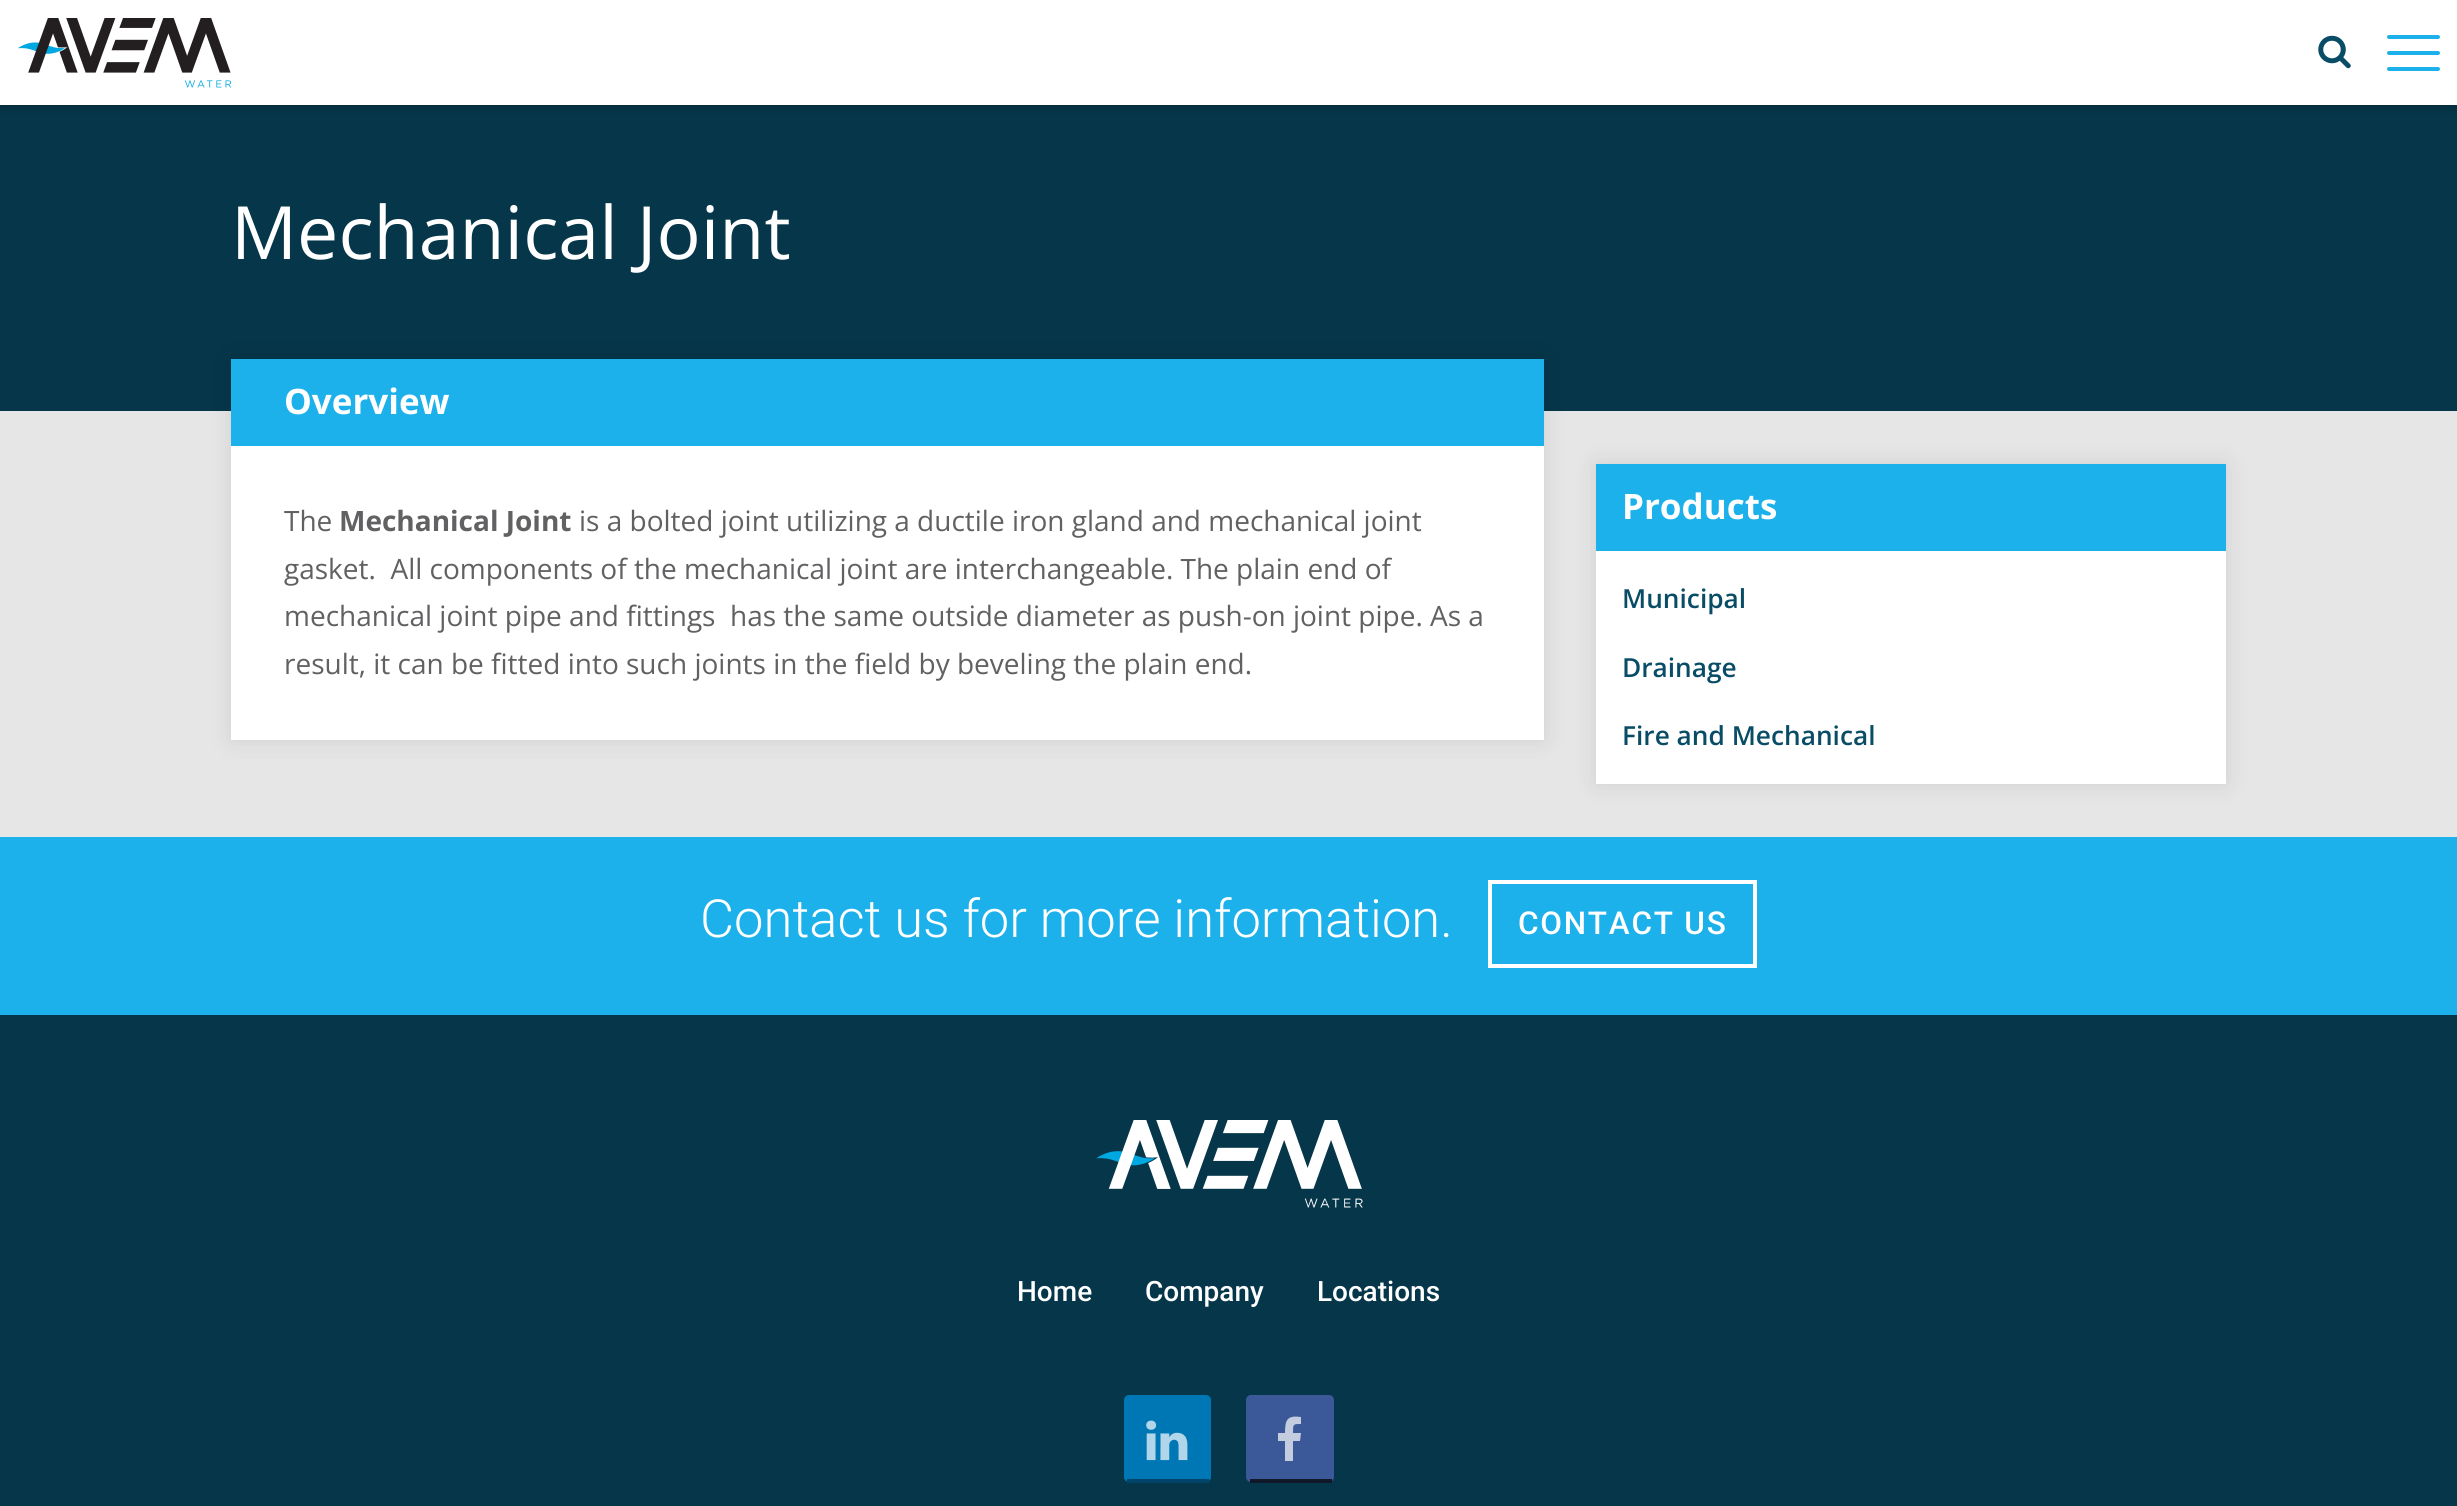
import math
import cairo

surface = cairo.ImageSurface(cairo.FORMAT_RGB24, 2457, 1506)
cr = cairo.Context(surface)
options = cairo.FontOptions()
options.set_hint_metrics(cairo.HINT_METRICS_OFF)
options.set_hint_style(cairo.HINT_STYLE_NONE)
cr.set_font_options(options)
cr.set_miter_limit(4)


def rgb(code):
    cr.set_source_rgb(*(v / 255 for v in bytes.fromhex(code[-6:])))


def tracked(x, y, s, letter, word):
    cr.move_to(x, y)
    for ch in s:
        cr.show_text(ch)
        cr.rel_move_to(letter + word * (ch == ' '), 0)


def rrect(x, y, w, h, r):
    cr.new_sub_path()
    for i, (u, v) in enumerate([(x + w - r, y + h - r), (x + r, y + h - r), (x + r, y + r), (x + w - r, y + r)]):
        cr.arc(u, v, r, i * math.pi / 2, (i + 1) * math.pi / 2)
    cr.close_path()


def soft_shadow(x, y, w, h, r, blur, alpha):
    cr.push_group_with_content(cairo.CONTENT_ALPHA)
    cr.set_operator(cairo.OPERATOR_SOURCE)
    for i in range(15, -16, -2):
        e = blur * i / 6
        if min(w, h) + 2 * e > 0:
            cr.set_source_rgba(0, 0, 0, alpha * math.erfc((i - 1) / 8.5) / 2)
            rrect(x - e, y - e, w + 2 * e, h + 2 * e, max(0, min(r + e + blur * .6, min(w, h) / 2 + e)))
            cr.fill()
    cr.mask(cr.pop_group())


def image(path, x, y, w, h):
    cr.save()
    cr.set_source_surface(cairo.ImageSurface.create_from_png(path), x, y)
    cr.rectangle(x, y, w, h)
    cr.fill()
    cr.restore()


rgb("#053649")
cr.paint()
rgb("#000000")
soft_shadow(0, 0, 2457, 105, 0, 4.5, 0.4)
rgb("#ffffff")
cr.rectangle(0, 0, 2457, 105)
cr.fill()
image("img/1.png", 18, 18, 213, 70)
image("img/2.png", 2318, 35, 33, 34)
rgb("#1db1eb")
rrect(2387, 35, 53, 4, 2)
cr.fill()
rrect(2387, 51, 53, 4, 2)
cr.fill()
rrect(2387, 67, 53, 4, 2)
cr.fill()
rgb("#e6e6e6")
cr.rectangle(0, 411, 2457, 426)
cr.fill()
rgb("#000000")
soft_shadow(231, 359, 1313, 381, 0, 11.5, 0.1)
rgb("#ffffff")
cr.rectangle(231, 446, 1313, 294)
cr.fill()
rgb("#1db1eb")
cr.rectangle(231, 359, 1313, 87)
cr.fill()
rgb("#000000")
soft_shadow(1596, 464, 630, 320, 0, 11.5, 0.1)
for x, y, w, h, color in [
    (1596, 464, 630, 87, "#1db1eb"),
    (1596, 551, 630, 233, "#ffffff"),
    (0, 837, 2457, 178, "#1db1eb"),
]:
    rgb(color)
    cr.rectangle(x, y, w, h)
    cr.fill()
cr.rectangle(1490, 882, 265, 84)
rgb("#ffffff")
cr.set_line_width(4)
cr.stroke()
image("img/3.png", 1096, 1120, 267, 88)
rgb("#0077b5")
rrect(1124, 1395, 87, 87, 5)
cr.fill()
rgb("#004569")
cr.rectangle(1127, 1479, 82, 4)
cr.fill()
image("img/4.png", 1146, 1420, 42, 41)
rgb("#3b5998")
rrect(1246, 1395, 88, 87, 5)
cr.fill()
rgb("#10182a")
cr.rectangle(1250, 1479, 82, 4)
cr.fill()
rgb("#c4cde0")
cr.new_path()
cr.move_to(1301, 1417)
cr.curve_to(1287, 1415, 1285, 1420, 1285, 1433)
cr.line_to(1278, 1433)
cr.line_to(1278, 1441)
cr.line_to(1285, 1441)
cr.line_to(1285, 1461)
cr.line_to(1293, 1461)
cr.line_to(1293, 1441)
cr.line_to(1300, 1441)
cr.line_to(1301, 1433)
cr.line_to(1293, 1433)
cr.curve_to(1293, 1424, 1293, 1424, 1301, 1424)
cr.close_path()
cr.fill()
cr.select_font_face("Open Sans")
cr.set_font_size(73.5)
rgb("#ffffff")
cr.move_to(231, 259)
cr.show_text("Mechanical Joint")
cr.select_font_face("Open Sans", cairo.FONT_SLANT_NORMAL, cairo.FONT_WEIGHT_BOLD)
cr.set_font_size(35)
cr.move_to(284, 414)
cr.show_text("Overview")
cr.select_font_face("Open Sans")
cr.set_font_size(28)
rgb("#616163")
cr.move_to(284, 531)
cr.show_text("The")
cr.select_font_face("Open Sans", cairo.FONT_SLANT_NORMAL, cairo.FONT_WEIGHT_BOLD)
cr.move_to(339, 531)
cr.show_text("Mechanical Joint")
cr.select_font_face("Open Sans")
for x, y, s in [
    (579, 531, "is a bolted joint utilizing a ductile iron gland and mechanical joint"),
    (284, 579, "gasket.  All components of the mechanical joint are interchangeable. The plain end of"),
    (284, 626, "mechanical joint pipe and fittings  has the same outside diameter as push-on joint pipe. As a"),
    (284, 674, "result, it can be fitted into such joints in the field by beveling the plain end."),
]:
    cr.move_to(x, y)
    cr.show_text(s)
cr.select_font_face("Open Sans", cairo.FONT_SLANT_NORMAL, cairo.FONT_WEIGHT_BOLD)
cr.set_font_size(35)
rgb("#ffffff")
cr.move_to(1622, 519)
cr.show_text("Products")
cr.select_font_face("Open Sans SemiBold")
cr.set_font_size(26.25)
rgb("#094c66")
for x, y, s in [
    (1622, 608, "Municipal"),
    (1622, 677, "Drainage"),
    (1622, 745, "Fire and Mechanical"),
]:
    cr.move_to(x, y)
    cr.show_text(s)
cr.select_font_face("Roboto Light")
cr.set_font_size(52.5)
rgb("#ffffff")
cr.move_to(700, 937)
cr.show_text("Contact us for more information.")
cr.select_font_face("Roboto Medium")
cr.set_font_size(31.5)
tracked(1518, 934, "CONTACT US", 1.75, 0)
cr.set_font_size(28)
for x, y, s in [
    (1017, 1301, "Home"),
    (1145, 1301, "Company"),
    (1317, 1301, "Locations"),
]:
    cr.move_to(x, y)
    cr.show_text(s)
surface.write_to_png("page.png")
